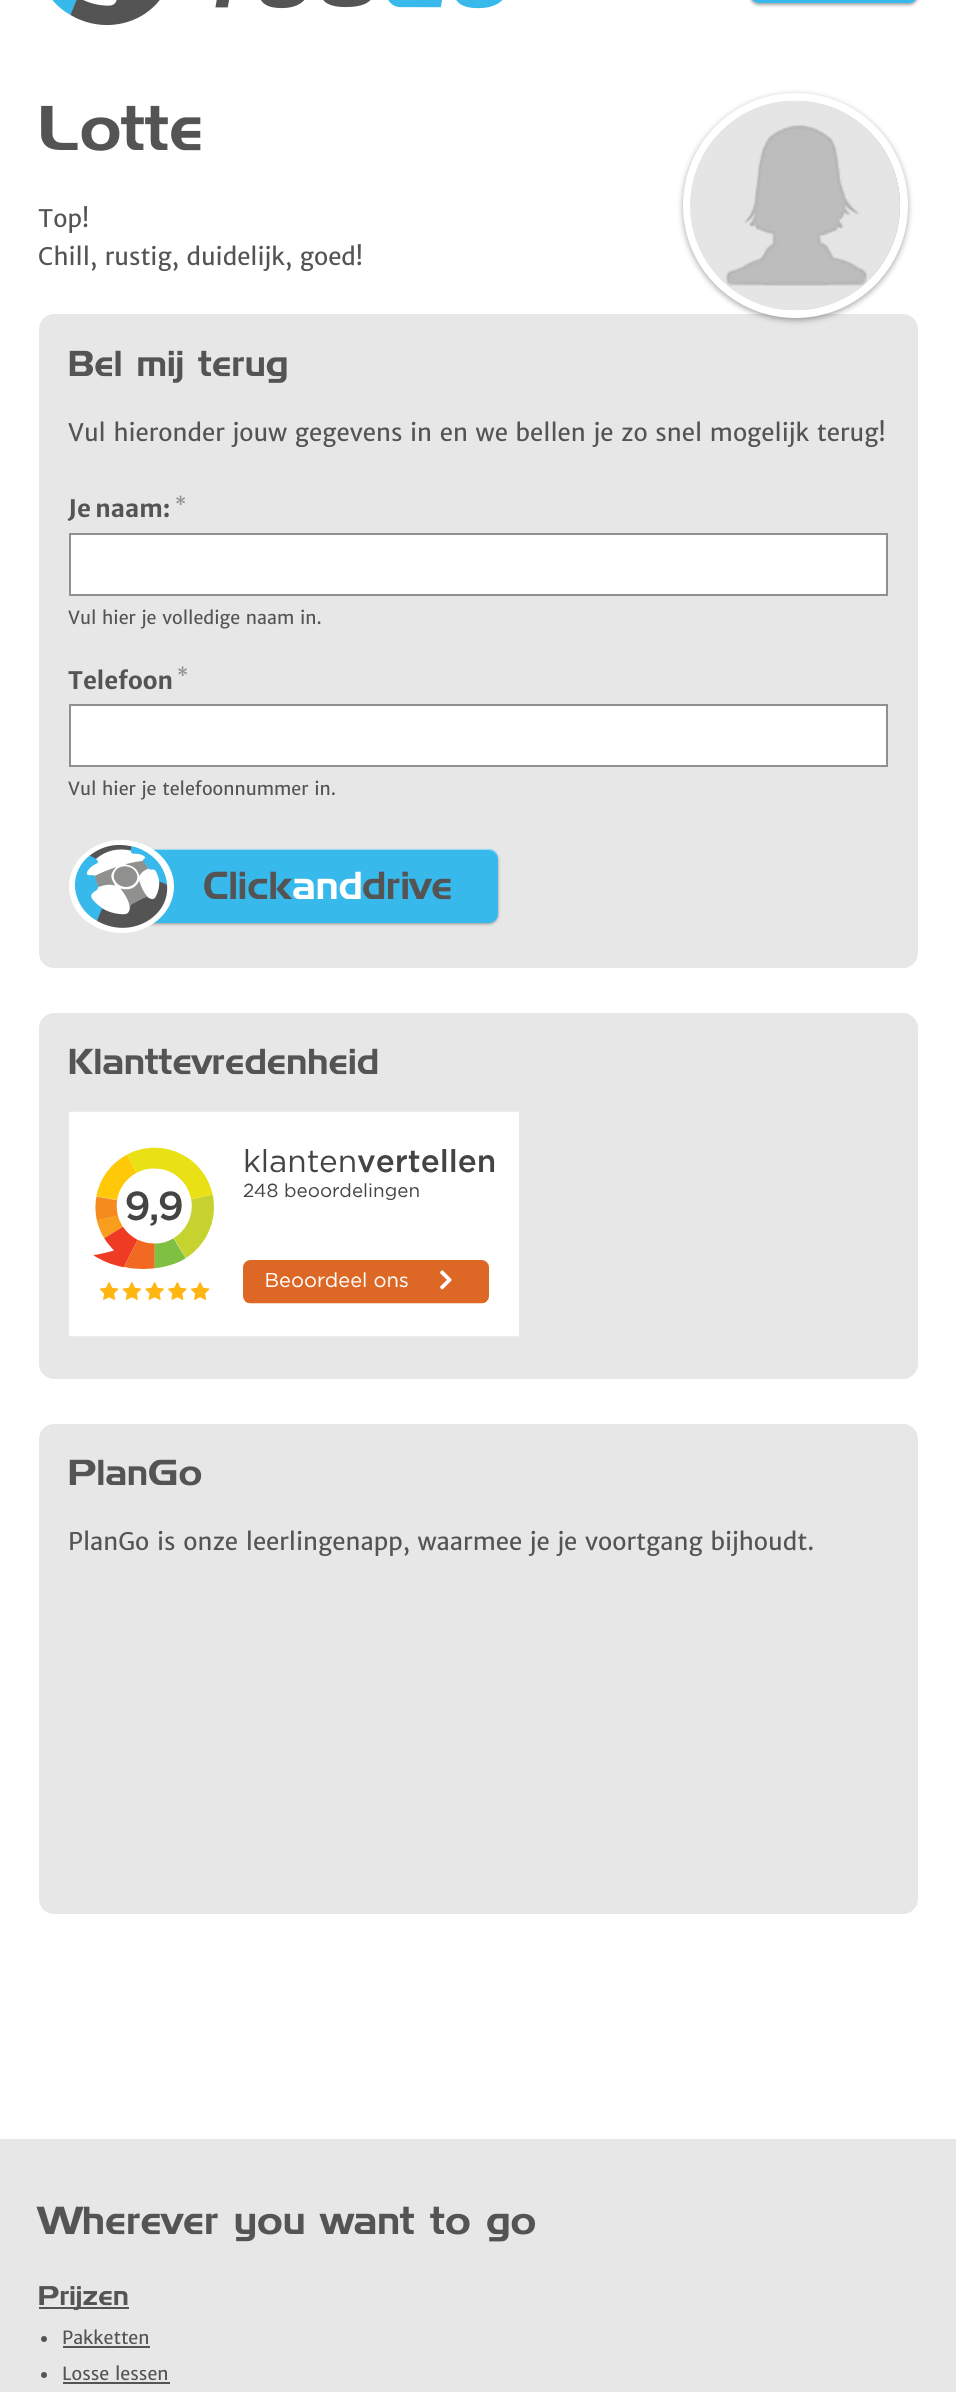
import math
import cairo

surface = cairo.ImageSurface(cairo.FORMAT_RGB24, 956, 2392)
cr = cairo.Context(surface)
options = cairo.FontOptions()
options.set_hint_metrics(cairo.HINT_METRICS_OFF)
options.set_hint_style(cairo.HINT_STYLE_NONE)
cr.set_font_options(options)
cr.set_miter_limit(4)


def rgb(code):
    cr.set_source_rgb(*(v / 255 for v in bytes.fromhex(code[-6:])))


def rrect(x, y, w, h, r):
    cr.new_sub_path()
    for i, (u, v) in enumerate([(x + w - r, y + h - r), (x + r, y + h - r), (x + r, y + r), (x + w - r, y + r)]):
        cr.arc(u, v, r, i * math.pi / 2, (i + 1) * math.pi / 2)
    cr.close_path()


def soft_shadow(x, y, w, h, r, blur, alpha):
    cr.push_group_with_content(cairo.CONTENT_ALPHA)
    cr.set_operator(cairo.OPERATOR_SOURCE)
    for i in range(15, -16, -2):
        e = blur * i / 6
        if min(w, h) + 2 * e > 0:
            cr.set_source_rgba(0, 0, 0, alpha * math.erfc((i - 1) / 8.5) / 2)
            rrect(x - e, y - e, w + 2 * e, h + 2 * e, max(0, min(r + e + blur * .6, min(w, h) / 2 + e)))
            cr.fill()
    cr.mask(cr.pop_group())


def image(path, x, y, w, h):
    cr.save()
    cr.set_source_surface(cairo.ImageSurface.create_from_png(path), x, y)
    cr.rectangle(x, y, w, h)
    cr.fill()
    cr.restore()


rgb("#ffffff")
cr.paint()
image("img/1.png", 52, 0, 451, 26)
rgb("#000000")
soft_shadow(750, -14, 168, 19, 9, 1.5, 0.35)
rgb("#38b9eb")
rrect(750, -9, 168, 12, 9)
cr.fill()
rgb("#e7e7e7")
rrect(39, 314, 879, 654, 15)
cr.fill()
rgb("#000000")
soft_shadow(683, 95, 225, 225, 112.5, 3, 0.35)
cr.arc(795.5, 205.5, 108.5, 0, 2 * math.pi)
rgb("#ffffff")
cr.set_line_width(8)
cr.stroke()
image("img/2.png", 690, 100, 210, 211)
cr.rectangle(70, 534, 817, 61)
cr.fill_preserve()
rgb("#90908f")
cr.set_line_width(2)
cr.stroke()
rgb("#ffffff")
cr.rectangle(70, 705, 817, 61)
cr.fill_preserve()
rgb("#90908f")
cr.stroke()
rgb("#000000")
soft_shadow(99, 851, 399, 73, 9, 1.5, 0.35)
rgb("#38b9eb")
rrect(99, 849, 399, 74, 9)
cr.fill()
cr.set_source_rgba(1, 1, 1, 0.5)
cr.new_path()
cr.move_to(108, 850)
cr.line_to(489, 850)
cr.curve_to(494, 850, 498, 855, 498, 860)
cr.curve_to(498, 854, 495, 849, 489, 849)
cr.line_to(106, 849)
cr.curve_to(101, 850, 99, 855, 99, 860)
cr.curve_to(99, 855, 103, 850, 108, 850)
cr.close_path()
cr.fill()
image("img/3.png", 69, 840, 105, 93)
rgb("#e7e7e7")
rrect(39, 1013, 879, 366, 15)
cr.fill()
image("img/4.png", 69, 1111, 450, 226)
rrect(39, 1424, 879, 490, 15)
cr.fill()
cr.rectangle(0, 2139, 956, 253)
cr.fill()
rgb("#545454")
cr.rectangle(39, 2307, 90, 2)
cr.fill()
cr.arc(44, 2339, 3, 0, 2 * math.pi)
cr.fill()
cr.rectangle(63, 2346, 87, 2)
cr.fill()
cr.arc(44, 2375, 3, 0, 2 * math.pi)
cr.fill()
cr.rectangle(63, 2382, 107, 2)
cr.fill()
cr.select_font_face("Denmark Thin")
cr.set_font_size(63)
cr.move_to(38, 150)
cr.show_text("Lotte")
cr.select_font_face("Merriweather Sans")
cr.set_font_size(24)
cr.move_to(38, 227)
cr.show_text("Top!")
cr.move_to(38, 265)
cr.show_text("Chill, rustig, duidelijk, goed!")
cr.select_font_face("Denmark Thin")
cr.set_font_size(36)
cr.move_to(68, 376)
cr.show_text("Bel mij terug")
cr.select_font_face("Merriweather Sans")
cr.set_font_size(24)
cr.move_to(68, 441)
cr.show_text("Vul hieronder jouw gegevens in en we bellen je zo snel mogelijk terug!")
cr.select_font_face("Merriweather Sans", cairo.FONT_SLANT_NORMAL, cairo.FONT_WEIGHT_BOLD)
cr.move_to(68, 517)
cr.show_text("Je naam:")
cr.select_font_face("Merriweather Sans")
cr.set_font_size(19)
rgb("#90908f")
cr.move_to(175, 511)
cr.show_text("*")
cr.set_font_size(18)
rgb("#545454")
cr.move_to(68, 624)
cr.show_text("Vul hier je volledige naam in.")
cr.select_font_face("Merriweather Sans", cairo.FONT_SLANT_NORMAL, cairo.FONT_WEIGHT_BOLD)
cr.set_font_size(24)
cr.move_to(68, 689)
cr.show_text("Telefoon")
cr.select_font_face("Merriweather Sans")
cr.set_font_size(19)
rgb("#90908f")
cr.move_to(177, 682)
cr.show_text("*")
cr.set_font_size(18)
rgb("#545454")
cr.move_to(68, 795)
cr.show_text("Vul hier je telefoonnummer in.")
cr.select_font_face("Denmark Thin")
cr.set_font_size(39)
cr.move_to(203, 899)
cr.show_text("Click")
rgb("#ffffff")
cr.move_to(292, 899)
cr.show_text("and")
rgb("#545454")
cr.move_to(362, 899)
cr.show_text("drive")
cr.set_font_size(36)
cr.move_to(68, 1074)
cr.show_text("Klanttevredenheid")
cr.move_to(68, 1485)
cr.show_text("PlanGo")
cr.select_font_face("Merriweather Sans")
cr.set_font_size(24)
cr.move_to(68, 1550)
cr.show_text("PlanGo is onze leerlingenapp, waarmee je je voortgang bijhoudt.")
cr.select_font_face("Denmark Thin")
cr.set_font_size(39)
cr.move_to(38, 2234)
cr.show_text("Wherever you want to go")
cr.set_font_size(27)
cr.move_to(38, 2305)
cr.show_text("Prijzen")
cr.select_font_face("Merriweather Sans")
cr.set_font_size(18)
cr.move_to(62, 2344)
cr.show_text("Pakketten")
cr.move_to(62, 2380)
cr.show_text("Losse lessen")
surface.write_to_png("page.png")
